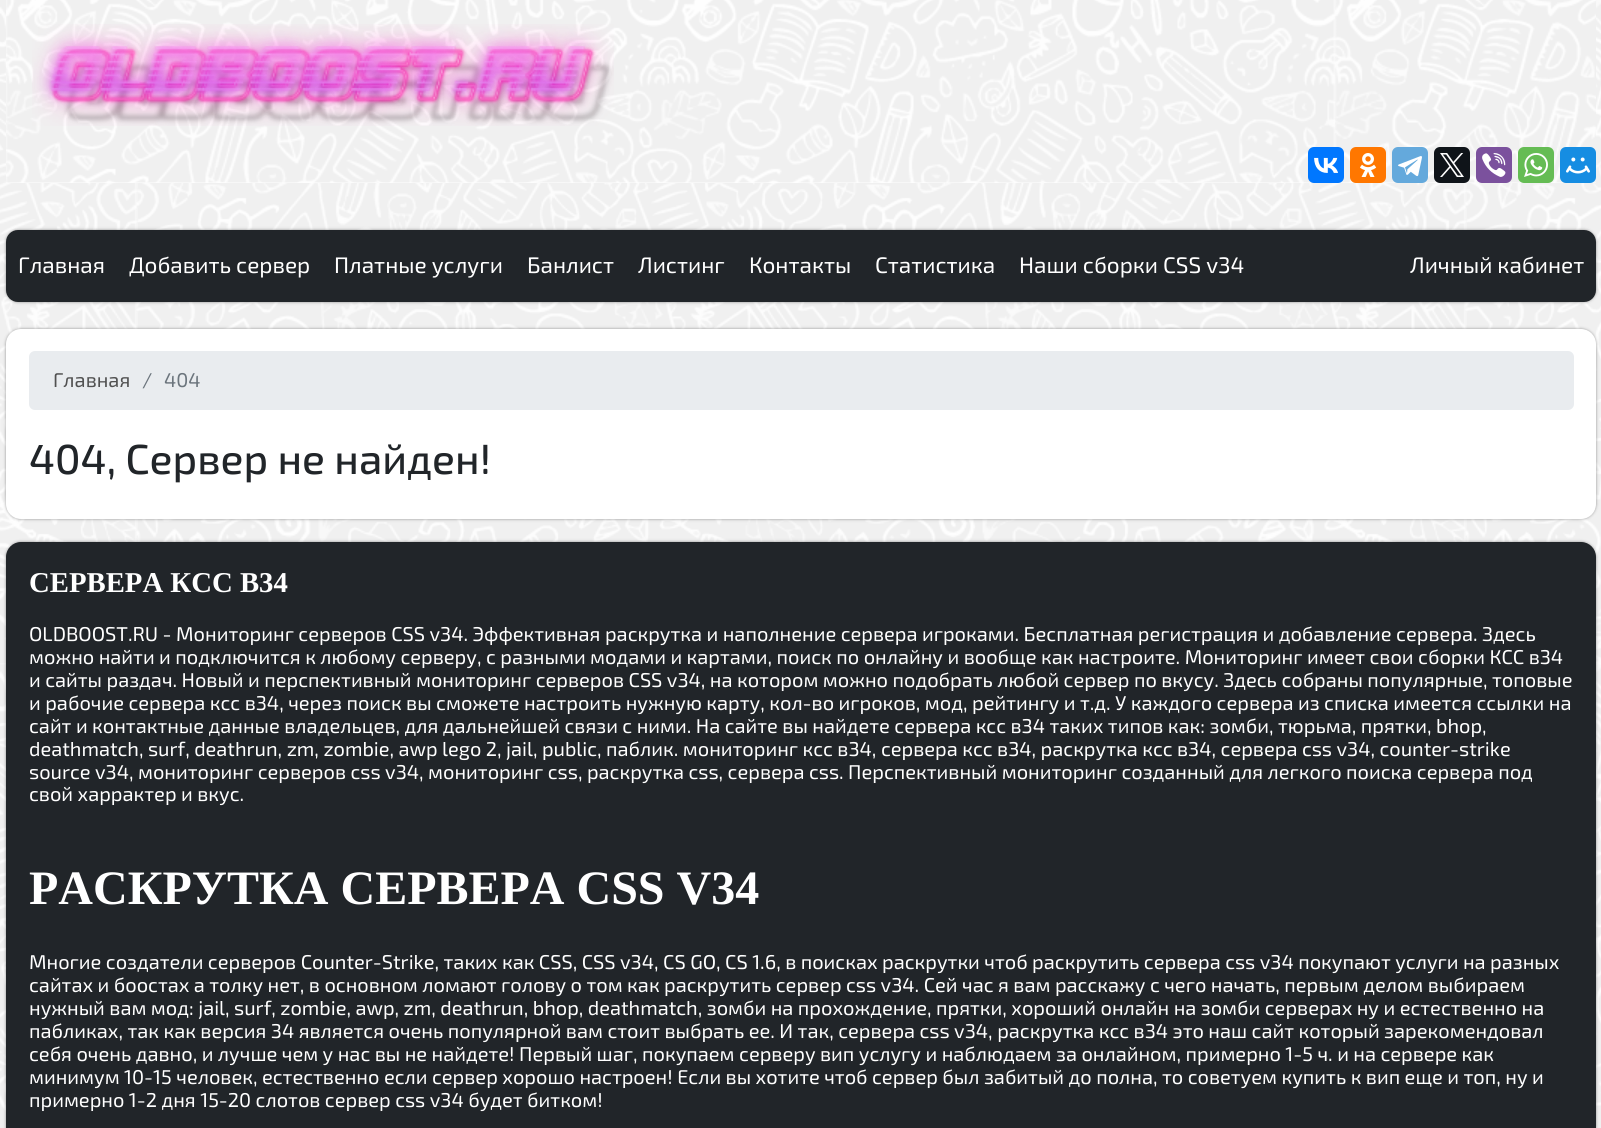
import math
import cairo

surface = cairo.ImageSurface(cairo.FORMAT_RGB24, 1601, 1128)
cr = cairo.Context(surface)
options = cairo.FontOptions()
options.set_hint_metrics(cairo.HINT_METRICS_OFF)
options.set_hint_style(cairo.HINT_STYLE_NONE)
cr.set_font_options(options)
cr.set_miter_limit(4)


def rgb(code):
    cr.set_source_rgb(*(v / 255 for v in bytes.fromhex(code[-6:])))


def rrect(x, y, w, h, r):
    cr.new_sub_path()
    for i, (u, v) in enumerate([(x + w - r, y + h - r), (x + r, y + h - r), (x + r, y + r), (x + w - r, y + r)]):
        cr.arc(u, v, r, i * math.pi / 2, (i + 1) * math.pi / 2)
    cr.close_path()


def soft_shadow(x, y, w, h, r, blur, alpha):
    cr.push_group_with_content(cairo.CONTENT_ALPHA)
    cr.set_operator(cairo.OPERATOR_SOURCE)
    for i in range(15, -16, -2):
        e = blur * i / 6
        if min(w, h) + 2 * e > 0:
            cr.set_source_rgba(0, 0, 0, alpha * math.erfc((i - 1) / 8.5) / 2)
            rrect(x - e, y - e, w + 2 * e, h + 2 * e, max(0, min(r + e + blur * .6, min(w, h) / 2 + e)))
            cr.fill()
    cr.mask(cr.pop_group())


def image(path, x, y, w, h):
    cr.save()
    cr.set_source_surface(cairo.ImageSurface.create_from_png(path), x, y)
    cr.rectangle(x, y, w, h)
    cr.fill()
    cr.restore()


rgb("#ffffff")
cr.paint()
image("img/1.png", 0, 0, 1601, 1128)
rgb("#ffffff")
cr.rectangle(6, 0, 1590, 183)
cr.fill()
image("img/2.png", 6, 0, 1590, 183)
image("img/3.png", 32, 24, 582, 102)
rgb("#0077ff")
rrect(1308, 147, 36, 36, 6)
cr.fill()
image("img/4.png", 1314, 157, 24, 16)
rgb("#ff7700")
rrect(1350, 147, 36, 36, 6)
cr.fill()
image("img/5.png", 1360, 153, 17, 24)
rgb("#64a9dc")
rrect(1392, 147, 36, 36, 6)
cr.fill()
image("img/6.png", 1398, 156, 24, 21)
rgb("#0f1419")
rrect(1434, 147, 36, 36, 6)
cr.fill()
image("img/7.png", 1440, 153, 24, 24)
rgb("#7b519d")
rrect(1476, 147, 36, 36, 6)
cr.fill()
image("img/8.png", 1482, 153, 24, 24)
rgb("#65bc54")
rrect(1518, 147, 36, 36, 6)
cr.fill()
image("img/9.png", 1524, 153, 24, 24)
rgb("#168de2")
rrect(1560, 147, 36, 36, 6)
cr.fill()
image("img/10.png", 1566, 157, 24, 17)
rgb("#000000")
soft_shadow(6, 230, 1590, 72, 12, 1.5, 0.4)
rgb("#212529")
rrect(6, 230, 1590, 72, 12)
cr.fill()
rgb("#000000")
soft_shadow(6, 329, 1590, 190, 15, 1.5, 0.4)
rgb("#ffffff")
rrect(6, 329, 1590, 190, 15)
cr.fill()
rgb("#e9ecef")
rrect(29, 351, 1545, 59, 6)
cr.fill()
rgb("#000000")
soft_shadow(6, 542, 1590, 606, 15, 1.5, 0.4)
rgb("#212529")
rrect(6, 542, 1590, 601, 15)
cr.fill()
cr.select_font_face("Exo 2")
cr.set_font_size(22.5)
rgb("#ffffff")
for x, y, s in [
    (18, 273, "Главная"),
    (129, 273, "Добавить сервер"),
    (334, 273, "Платные услуги"),
    (527, 273, "Банлист"),
    (638, 273, "Листинг"),
    (749, 273, "Контакты"),
    (875, 273, "Статистика"),
    (1019, 273, "Наши сборки CSS v34"),
    (1410, 273, "Личный кабинет"),
]:
    cr.move_to(x, y)
    cr.show_text(s)
cr.set_font_size(20)
rgb("#515151")
cr.move_to(53, 387)
cr.show_text("Главная")
rgb("#6c757d")
cr.move_to(142, 387)
cr.show_text("/")
cr.move_to(164, 387)
cr.show_text("404")
cr.select_font_face("Exo 2 Medium")
cr.set_font_size(42)
rgb("#212529")
cr.move_to(29, 474)
cr.show_text("404, Сервер не найден!")
cr.select_font_face("Liberation Serif", cairo.FONT_SLANT_NORMAL, cairo.FONT_WEIGHT_BOLD)
cr.set_font_size(28.75)
rgb("#ffffff")
cr.move_to(29, 592)
cr.show_text("СЕРВЕРА КСС В34")
cr.select_font_face("Exo 2")
cr.set_font_size(20)
for x, y, s in [
    (29, 641, "OLDBOOST.RU - Мониторинг серверов CSS v34. Эффективная раскрутка и наполнение сервера игроками. Бесплатная регистрация и добавление сервера. Здесь"),
    (29, 664, "можно найти и подключится к любому серверу, с разными модами и картами, поиск по онлайну и вообще как настроите. Мониторинг имеет свои сборки КСС в34"),
    (29, 687, "и сайты раздач. Новый и перспективный мониторинг серверов CSS v34, на котором можно подобрать любой сервер по вкусу. Здесь собраны популярные, топовые"),
    (29, 710, "и рабочие сервера ксс в34, через поиск вы сможете настроить нужную карту, кол-во игроков, мод, рейтингу и т.д. У каждого сервера из списка имеется ссылки на"),
    (29, 733, "сайт и контактные данные владельцев, для дальнейшей связи с ними. На сайте вы найдете сервера ксс в34 таких типов как: зомби, тюрьма, прятки, bhop,"),
    (29, 756, "deathmatch, surf, deathrun, zm, zombie, awp lego 2, jail, public, паблик. мониторинг ксс в34, сервера ксс в34, раскрутка ксс в34, сервера css v34, counter-strike"),
    (29, 779, "source v34, мониторинг серверов css v34, мониторинг css, раскрутка css, сервера css. Перспективный мониторинг созданный для легкого поиска сервера под"),
    (29, 801, "свой харрактер и вкус."),
]:
    cr.move_to(x, y)
    cr.show_text(s)
cr.select_font_face("Liberation Serif", cairo.FONT_SLANT_NORMAL, cairo.FONT_WEIGHT_BOLD)
cr.set_font_size(48)
cr.move_to(29, 904)
cr.show_text("РАСКРУТКА СЕРВЕРА CSS V34")
cr.select_font_face("Exo 2")
cr.set_font_size(20)
for x, y, s in [
    (29, 969, "Многие создатели серверов Counter-Strike, таких как CSS, CSS v34, CS GO, CS 1.6, в поисках раскрутки чтоб раскрутить сервера css v34 покупают услуги на разных"),
    (29, 992, "сайтах и боостах а толку нет, в основном ломают голову о том как раскрутить сервер css v34. Сей час я вам расскажу с чего начать, первым делом выбираем"),
    (29, 1015, "нужный вам мод: jail, surf, zombie, awp, zm, deathrun, bhop, deathmatch, зомби на прохождение, прятки, хороший онлайн на зомби серверах ну и естественно на"),
    (29, 1038, "пабликах, так как версия 34 является очень популярной вам стоит выбрать ее. И так, сервера css v34, раскрутка ксс в34 это наш сайт который зарекомендовал"),
    (29, 1061, "себя очень давно, и лучше чем у нас вы не найдете! Первый шаг, покупаем серверу вип услугу и наблюдаем за онлайном, примерно 1-5 ч. и на сервере как"),
    (29, 1084, "минимум 10-15 человек, естественно если сервер хорошо настроен! Если вы хотите чтоб сервер был забитый до полна, то советуем купить к вип еще и топ, ну и"),
    (29, 1107, "примерно 1-2 дня 15-20 слотов сервер css v34 будет битком!"),
]:
    cr.move_to(x, y)
    cr.show_text(s)
surface.write_to_png("page.png")
